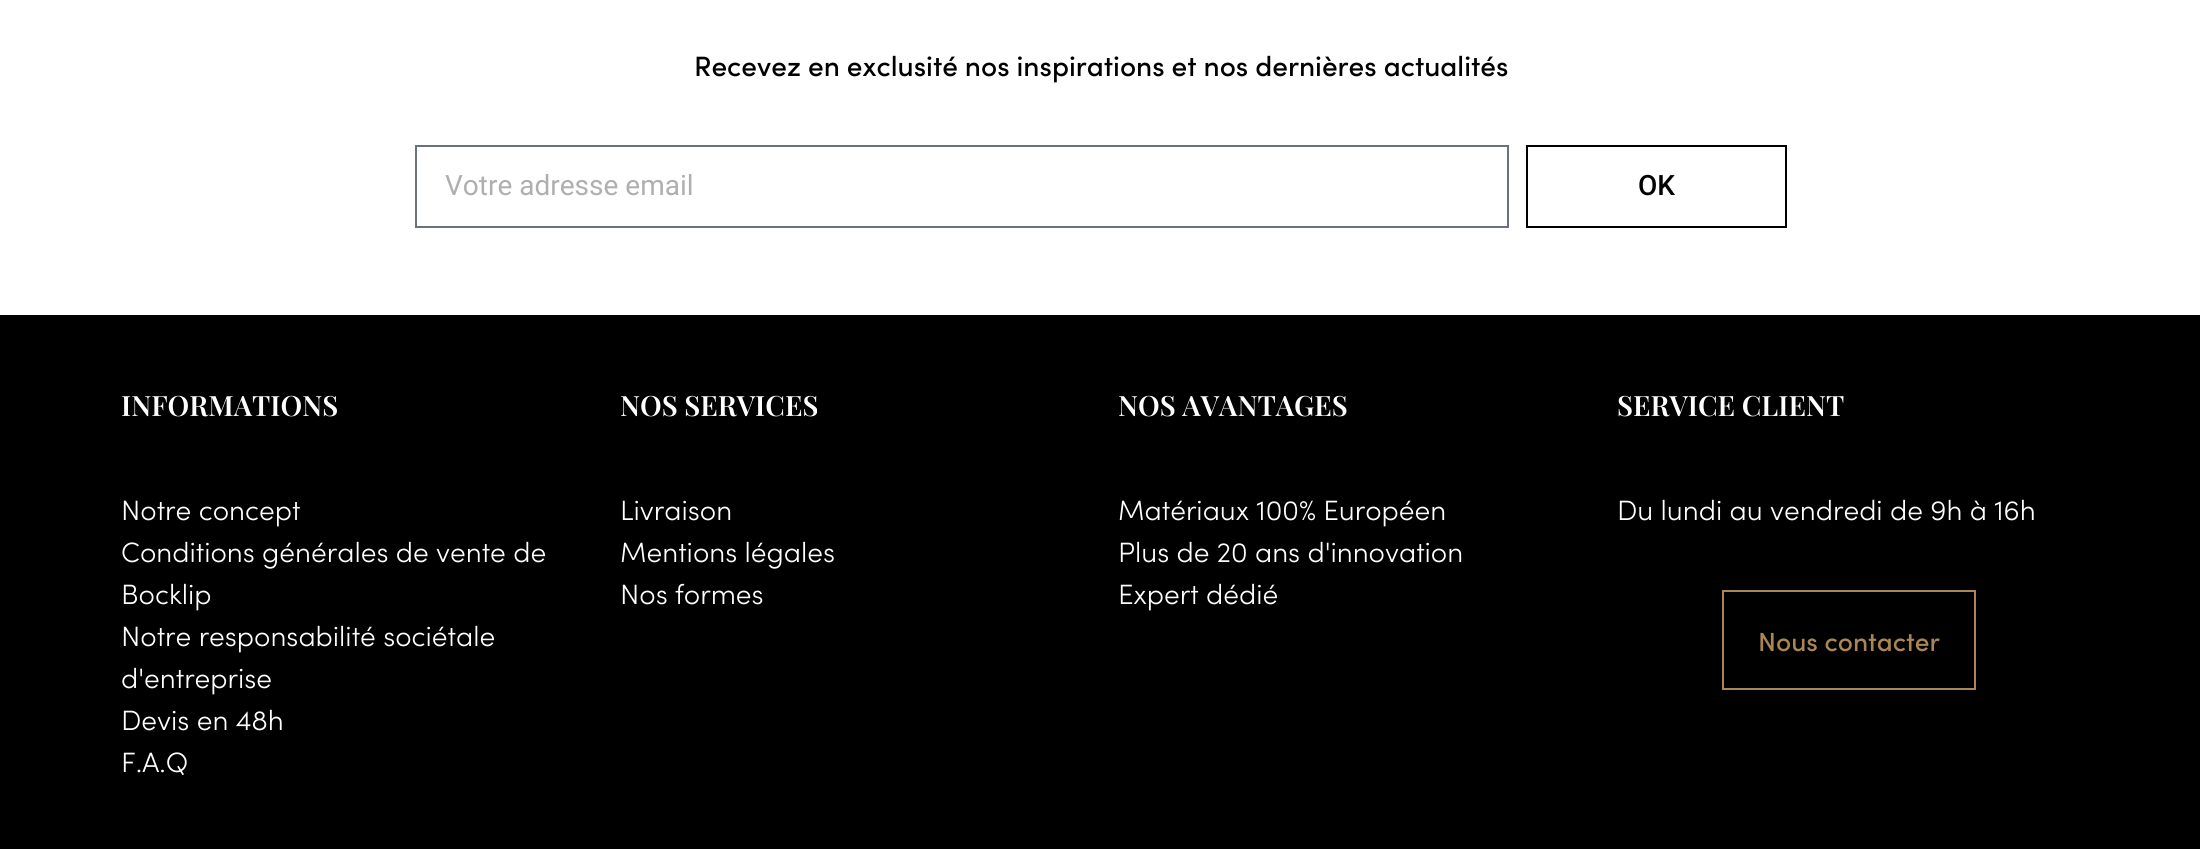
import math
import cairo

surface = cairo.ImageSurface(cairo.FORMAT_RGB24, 2200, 849)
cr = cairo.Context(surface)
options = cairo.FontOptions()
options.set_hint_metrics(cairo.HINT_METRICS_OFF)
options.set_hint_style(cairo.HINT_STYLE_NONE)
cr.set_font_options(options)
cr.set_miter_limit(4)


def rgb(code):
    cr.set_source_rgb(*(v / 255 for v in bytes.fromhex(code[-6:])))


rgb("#ffffff")
cr.paint()
cr.rectangle(416, 146, 1092, 81)
rgb("#69727d")
cr.stroke()
cr.rectangle(1527, 146, 259, 81)
rgb("#000000")
cr.stroke()
cr.rectangle(0, 315, 2200, 534)
cr.fill()
cr.rectangle(1723, 591, 252, 98)
rgb("#aa8652")
cr.stroke()
cr.select_font_face("Sofia Medium")
cr.set_font_size(28)
rgb("#000000")
cr.move_to(694, 76)
cr.show_text("Recevez en exclusité nos inspirations et nos dernières actualités")
cr.select_font_face("Roboto")
rgb("#afafaf")
cr.move_to(445, 195)
cr.show_text("Votre adresse email")
cr.select_font_face("Roboto Medium")
rgb("#000000")
cr.move_to(1638, 195)
cr.show_text("OK")
cr.select_font_face("Playfair Display SemiBold")
rgb("#ffffff")
cr.move_to(121, 416)
cr.show_text("INFORMATIONS")
cr.select_font_face("Sofia Light")
for x, y, s in [
    (121, 520, "Notre concept"),
    (121, 562, "Conditions générales de vente de"),
    (121, 604, "Bocklip"),
    (121, 646, "Notre responsabilité sociétale"),
    (121, 688, "d'entreprise"),
    (121, 730, "Devis en 48h"),
    (121, 772, "F.A.Q"),
]:
    cr.move_to(x, y)
    cr.show_text(s)
cr.select_font_face("Playfair Display SemiBold")
cr.move_to(620, 416)
cr.show_text("NOS SERVICES")
cr.select_font_face("Sofia Light")
for x, y, s in [
    (620, 520, "Livraison"),
    (620, 562, "Mentions légales"),
    (620, 604, "Nos formes"),
]:
    cr.move_to(x, y)
    cr.show_text(s)
cr.select_font_face("Playfair Display SemiBold")
cr.move_to(1118, 416)
cr.show_text("NOS AVANTAGES")
cr.select_font_face("Sofia Light")
for x, y, s in [
    (1118, 520, "Matériaux 100% Européen"),
    (1118, 562, "Plus de 20 ans d'innovation"),
    (1118, 604, "Expert dédié"),
]:
    cr.move_to(x, y)
    cr.show_text(s)
cr.select_font_face("Playfair Display SemiBold")
cr.move_to(1617, 416)
cr.show_text("SERVICE CLIENT")
cr.select_font_face("Sofia Light")
cr.move_to(1617, 520)
cr.show_text("Du lundi au vendredi de 9h à 16h")
cr.select_font_face("Sofia Medium")
cr.set_font_size(26.25)
rgb("#aa8652")
cr.move_to(1758, 651)
cr.show_text("Nous contacter")
surface.write_to_png("page.png")
